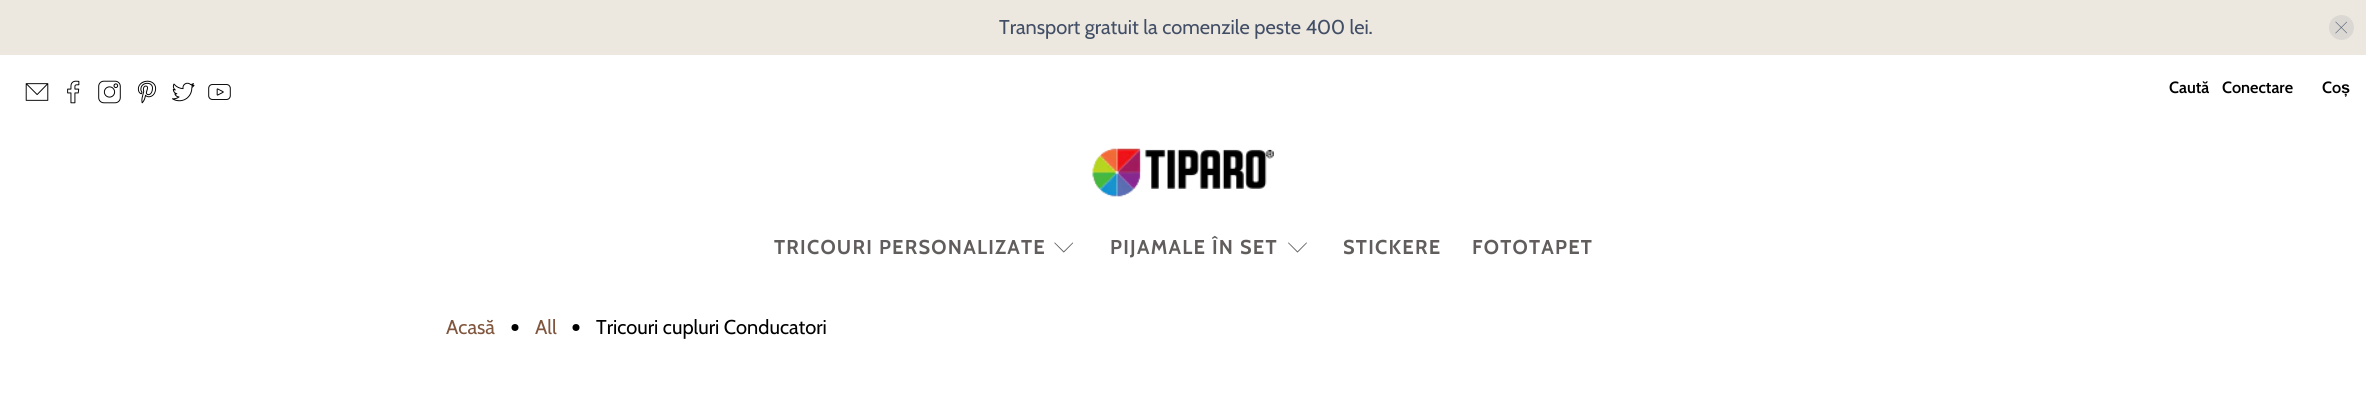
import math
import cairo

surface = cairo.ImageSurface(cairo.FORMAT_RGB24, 2366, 395)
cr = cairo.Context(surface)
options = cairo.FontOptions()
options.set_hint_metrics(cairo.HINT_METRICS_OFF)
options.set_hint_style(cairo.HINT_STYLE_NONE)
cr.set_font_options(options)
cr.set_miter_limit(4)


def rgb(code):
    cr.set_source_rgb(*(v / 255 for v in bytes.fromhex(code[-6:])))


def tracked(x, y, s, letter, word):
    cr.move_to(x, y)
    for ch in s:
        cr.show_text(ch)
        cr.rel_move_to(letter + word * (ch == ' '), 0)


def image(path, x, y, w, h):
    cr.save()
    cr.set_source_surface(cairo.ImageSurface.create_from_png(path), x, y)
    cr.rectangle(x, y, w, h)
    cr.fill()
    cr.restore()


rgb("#ffffff")
cr.paint()
rgb("#ece7df")
cr.rectangle(0, 0, 2366, 55)
cr.fill()
rgb("#dbd8d3")
cr.arc(2341.5, 27.5, 12.5, 0, 2 * math.pi)
cr.fill()
image("img/1.png", 2335, 21, 12, 13)
image("img/2.png", 25, 83, 24, 18)
image("img/3.png", 67, 80, 13, 24)
image("img/4.png", 98, 80, 23, 24)
image("img/5.png", 137, 80, 20, 24)
image("img/6.png", 172, 82, 23, 20)
image("img/7.png", 208, 84, 23, 16)
image("img/8.png", 1092, 148, 182, 49)
image("img/9.png", 1054, 242, 20, 11)
image("img/10.png", 1288, 242, 19, 11)
rgb("#000000")
cr.arc(515, 327.5, 3.5, 0, 2 * math.pi)
cr.fill()
cr.arc(576, 327.5, 3.5, 0, 2 * math.pi)
cr.fill()
cr.select_font_face("Cabin")
cr.set_font_size(20)
rgb("#414e66")
cr.move_to(999, 34)
cr.show_text("Transport gratuit la comenzile peste 400 lei.")
cr.select_font_face("Cabin SemiBold")
cr.set_font_size(16.25)
rgb("#000000")
for x, y, s in [
    (2169, 93, "Caută"),
    (2222, 93, "Conectare"),
    (2322, 93, "Co"),
]:
    cr.move_to(x, y)
    cr.show_text(s)
cr.select_font_face("Liberation Sans", cairo.FONT_SLANT_NORMAL, cairo.FONT_WEIGHT_BOLD)
cr.move_to(2341, 93)
cr.show_text("ș")
cr.select_font_face("Cabin", cairo.FONT_SLANT_NORMAL, cairo.FONT_WEIGHT_BOLD)
cr.set_font_size(20)
rgb("#605d5c")
for x, y, s in [
    (774, 254, "TRICOURI PERSONALIZATE"),
    (1110, 254, "PIJAMALE ÎN SET"),
    (1343, 254, "STICKERE"),
    (1472, 254, "FOTOTAPET"),
]:
    tracked(x, y, s, 1.25, 0)
cr.select_font_face("Cabin")
rgb("#81563e")
cr.move_to(446, 334)
cr.show_text("Acasă")
cr.move_to(535, 334)
cr.show_text("All")
rgb("#000000")
cr.move_to(596, 334)
cr.show_text("Tricouri cupluri Conducatori")
surface.write_to_png("page.png")
